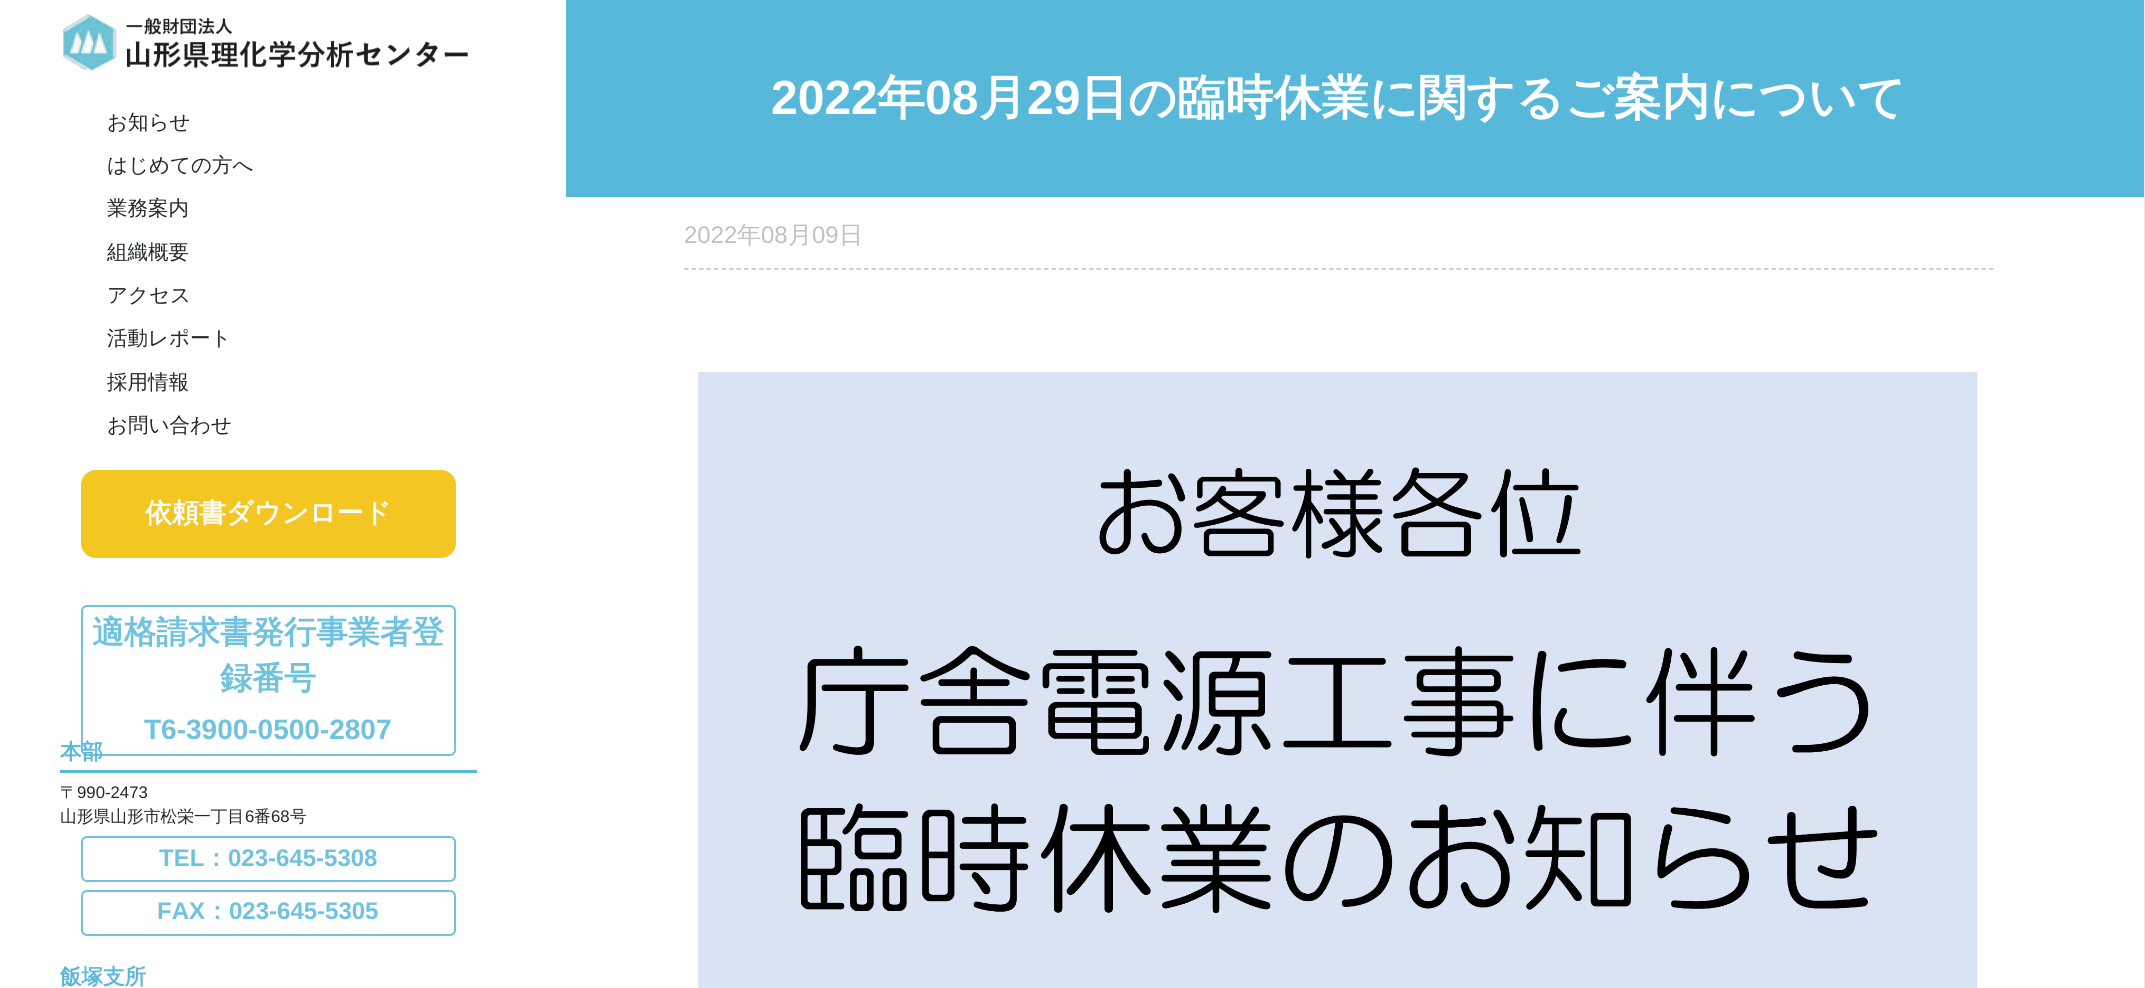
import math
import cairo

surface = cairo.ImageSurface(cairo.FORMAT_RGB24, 2145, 988)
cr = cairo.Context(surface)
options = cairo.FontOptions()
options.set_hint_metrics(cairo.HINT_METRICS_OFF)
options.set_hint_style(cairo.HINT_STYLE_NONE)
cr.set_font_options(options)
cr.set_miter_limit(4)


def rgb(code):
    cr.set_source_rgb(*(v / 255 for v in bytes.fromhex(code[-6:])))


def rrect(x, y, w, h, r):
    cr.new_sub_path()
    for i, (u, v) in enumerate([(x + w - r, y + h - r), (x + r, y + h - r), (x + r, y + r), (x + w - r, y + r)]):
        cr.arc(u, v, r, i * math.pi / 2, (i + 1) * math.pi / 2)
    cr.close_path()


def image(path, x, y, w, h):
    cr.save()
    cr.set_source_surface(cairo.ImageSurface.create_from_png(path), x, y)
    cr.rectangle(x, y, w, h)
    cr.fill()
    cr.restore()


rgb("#e9e9e9")
cr.paint()
rgb("#ffffff")
cr.rectangle(0, 0, 537, 988)
cr.fill()
image("img/1.png", 63, 14, 405, 57)
cr.rectangle(537, 197, 1607, 791)
cr.fill()
cr.save()
cr.rectangle(477, 179, 150, 450)
cr.clip()
cr.new_path()
cr.move_to(230, 585)
cr.line_to(377, 585)
cr.curve_to(482, 585, 566, 500, 566, 396)
cr.line_to(566, 249)
cr.curve_to(566, 145, 482, 60, 377, 60)
cr.line_to(230, 60)
cr.curve_to(126, 60, 41, 145, 41, 249)
cr.line_to(41, 396)
cr.curve_to(41, 500, 126, 585, 230, 585)
cr.close_path()
cr.fill()
cr.restore()
cr.save()
cr.rectangle(477, 44, 150, 450)
cr.clip()
cr.new_path()
cr.move_to(230, 450)
cr.line_to(377, 450)
cr.curve_to(482, 450, 566, 365, 566, 261)
cr.line_to(566, 114)
cr.curve_to(566, 10, 482, -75, 377, -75)
cr.line_to(230, -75)
cr.curve_to(126, -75, 41, 10, 41, 114)
cr.line_to(41, 261)
cr.curve_to(41, 365, 126, 450, 230, 450)
cr.close_path()
cr.fill()
cr.restore()
cr.save()
cr.rectangle(477, 0, 150, 359)
cr.clip()
cr.new_path()
cr.move_to(230, 315)
cr.line_to(377, 315)
cr.curve_to(482, 315, 566, 230, 566, 126)
cr.line_to(566, -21)
cr.curve_to(566, -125, 482, -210, 377, -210)
cr.line_to(230, -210)
cr.curve_to(126, -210, 41, -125, 41, -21)
cr.line_to(41, 126)
cr.curve_to(41, 230, 126, 315, 230, 315)
cr.close_path()
cr.fill()
cr.restore()
rgb("#f3c623")
rrect(81, 470, 375, 88, 15)
cr.fill()
rrect(82, 606, 373, 149, 5)
rgb("#70c2df")
cr.stroke()
rgb("#59b8da")
cr.rectangle(60, 770, 417, 3)
cr.fill()
rrect(82, 837, 373, 44, 5)
rgb("#70c2df")
cr.stroke()
rrect(82, 891, 373, 44, 5)
cr.stroke()
rgb("#57b8da")
cr.rectangle(566, 0, 1578, 197)
cr.fill()
cr.new_path()
cr.move_to(684, 269)
cr.line_to(1993.5, 269)
rgb("#c1c0c0")
cr.set_line_width(1.5)
cr.set_dash([4.5, 3])
cr.stroke()
image("img/2.png", 698, 371, 1280, 617)
cr.select_font_face("WenQuanYi Zen Hei Medium")
cr.set_font_size(20.5)
rgb("#23282d")
for x, y, s in [
    (107, 129, "お知らせ"),
    (107, 172, "はじめての方へ"),
    (107, 215, "業務案内"),
    (107, 259, "組織概要"),
    (107, 302, "アクセス"),
    (107, 345, "活動レポート"),
    (107, 389, "採用情報"),
    (107, 432, "お問い合わせ"),
]:
    cr.move_to(x, y)
    cr.show_text(s)
cr.select_font_face("WenQuanYi Zen Hei", cairo.FONT_SLANT_NORMAL, cairo.FONT_WEIGHT_BOLD)
cr.set_font_size(27)
rgb("#ffffff")
cr.move_to(145, 522)
cr.show_text("依頼書ダウンロード")
cr.set_font_size(32)
rgb("#70c2df")
cr.move_to(92, 643)
cr.show_text("適格請求書発行事業者登")
cr.move_to(220, 689)
cr.show_text("録番号")
cr.select_font_face("Liberation Sans", cairo.FONT_SLANT_NORMAL, cairo.FONT_WEIGHT_BOLD)
cr.set_font_size(28)
cr.move_to(144, 739)
cr.show_text("T6-3900-0500-2807")
cr.select_font_face("WenQuanYi Zen Hei", cairo.FONT_SLANT_NORMAL, cairo.FONT_WEIGHT_BOLD)
cr.set_font_size(21.5)
rgb("#59b8da")
cr.move_to(60, 759)
cr.show_text("本部")
cr.select_font_face("WenQuanYi Zen Hei Medium")
cr.set_font_size(16.75)
rgb("#23282d")
cr.move_to(60, 798)
cr.show_text("〒")
cr.select_font_face("Liberation Sans")
cr.move_to(77, 798)
cr.show_text("990-2473")
cr.select_font_face("WenQuanYi Zen Hei Medium")
cr.move_to(60, 822)
cr.show_text("山形県山形市松栄一丁目")
cr.select_font_face("Liberation Sans")
cr.move_to(245, 822)
cr.show_text("6")
cr.select_font_face("WenQuanYi Zen Hei Medium")
cr.move_to(254, 822)
cr.show_text("番")
cr.select_font_face("Liberation Sans")
cr.move_to(271, 822)
cr.show_text("68")
cr.select_font_face("WenQuanYi Zen Hei Medium")
cr.move_to(290, 822)
cr.show_text("号")
cr.select_font_face("Liberation Sans", cairo.FONT_SLANT_NORMAL, cairo.FONT_WEIGHT_BOLD)
cr.set_font_size(24)
rgb("#70c2df")
cr.move_to(159, 866)
cr.show_text("TEL")
cr.select_font_face("WenQuanYi Zen Hei", cairo.FONT_SLANT_NORMAL, cairo.FONT_WEIGHT_BOLD)
cr.move_to(204, 866)
cr.show_text("：")
cr.select_font_face("Liberation Sans", cairo.FONT_SLANT_NORMAL, cairo.FONT_WEIGHT_BOLD)
cr.move_to(228, 866)
cr.show_text("023-645-5308")
cr.move_to(157, 919)
cr.show_text("FAX")
cr.select_font_face("WenQuanYi Zen Hei", cairo.FONT_SLANT_NORMAL, cairo.FONT_WEIGHT_BOLD)
cr.move_to(205, 919)
cr.show_text("：")
cr.select_font_face("Liberation Sans", cairo.FONT_SLANT_NORMAL, cairo.FONT_WEIGHT_BOLD)
cr.move_to(229, 919)
cr.show_text("023-645-5305")
cr.select_font_face("WenQuanYi Zen Hei", cairo.FONT_SLANT_NORMAL, cairo.FONT_WEIGHT_BOLD)
cr.set_font_size(21.5)
rgb("#59b8da")
cr.move_to(60, 984)
cr.show_text("飯塚支所")
cr.select_font_face("Liberation Sans", cairo.FONT_SLANT_NORMAL, cairo.FONT_WEIGHT_BOLD)
cr.set_font_size(48)
rgb("#ffffff")
cr.move_to(771, 114)
cr.show_text("2022")
cr.select_font_face("WenQuanYi Zen Hei", cairo.FONT_SLANT_NORMAL, cairo.FONT_WEIGHT_BOLD)
cr.move_to(877, 114)
cr.show_text("年")
cr.select_font_face("Liberation Sans", cairo.FONT_SLANT_NORMAL, cairo.FONT_WEIGHT_BOLD)
cr.move_to(925, 114)
cr.show_text("08")
cr.select_font_face("WenQuanYi Zen Hei", cairo.FONT_SLANT_NORMAL, cairo.FONT_WEIGHT_BOLD)
cr.move_to(979, 114)
cr.show_text("月")
cr.select_font_face("Liberation Sans", cairo.FONT_SLANT_NORMAL, cairo.FONT_WEIGHT_BOLD)
cr.move_to(1027, 114)
cr.show_text("29")
cr.select_font_face("WenQuanYi Zen Hei", cairo.FONT_SLANT_NORMAL, cairo.FONT_WEIGHT_BOLD)
cr.move_to(1080, 114)
cr.show_text("日の臨時休業に関するご案内について")
cr.select_font_face("Liberation Sans")
cr.set_font_size(24)
rgb("#c1c0c0")
cr.move_to(684, 243)
cr.show_text("2022")
cr.select_font_face("WenQuanYi Zen Hei Medium")
cr.move_to(737, 243)
cr.show_text("年")
cr.select_font_face("Liberation Sans")
cr.move_to(761, 243)
cr.show_text("08")
cr.select_font_face("WenQuanYi Zen Hei Medium")
cr.move_to(788, 243)
cr.show_text("月")
cr.select_font_face("Liberation Sans")
cr.move_to(812, 243)
cr.show_text("09")
cr.select_font_face("WenQuanYi Zen Hei Medium")
cr.move_to(839, 243)
cr.show_text("日")
surface.write_to_png("page.png")
